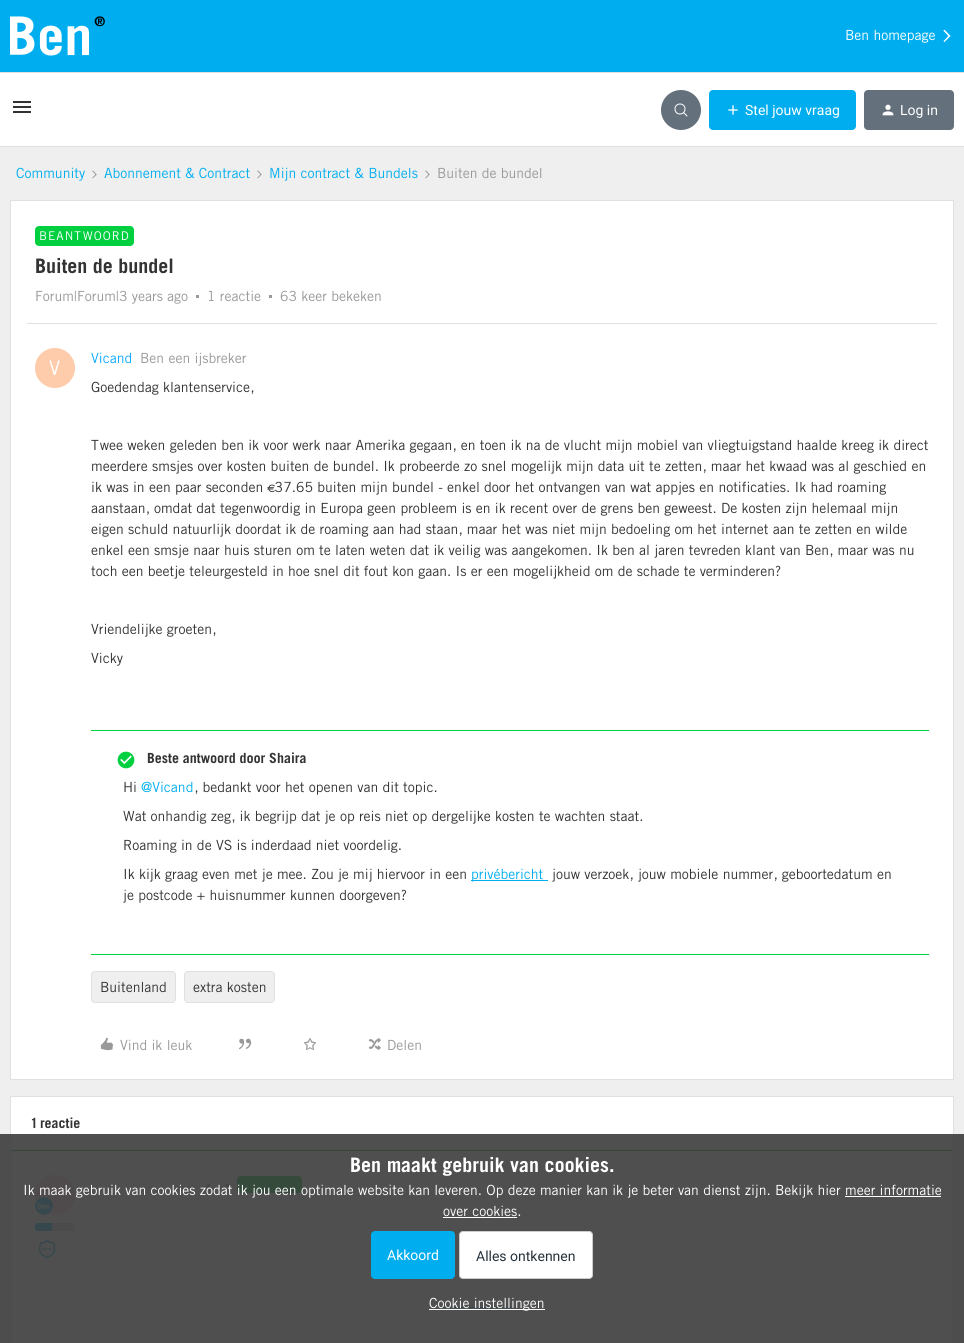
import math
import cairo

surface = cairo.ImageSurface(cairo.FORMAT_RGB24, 964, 1343)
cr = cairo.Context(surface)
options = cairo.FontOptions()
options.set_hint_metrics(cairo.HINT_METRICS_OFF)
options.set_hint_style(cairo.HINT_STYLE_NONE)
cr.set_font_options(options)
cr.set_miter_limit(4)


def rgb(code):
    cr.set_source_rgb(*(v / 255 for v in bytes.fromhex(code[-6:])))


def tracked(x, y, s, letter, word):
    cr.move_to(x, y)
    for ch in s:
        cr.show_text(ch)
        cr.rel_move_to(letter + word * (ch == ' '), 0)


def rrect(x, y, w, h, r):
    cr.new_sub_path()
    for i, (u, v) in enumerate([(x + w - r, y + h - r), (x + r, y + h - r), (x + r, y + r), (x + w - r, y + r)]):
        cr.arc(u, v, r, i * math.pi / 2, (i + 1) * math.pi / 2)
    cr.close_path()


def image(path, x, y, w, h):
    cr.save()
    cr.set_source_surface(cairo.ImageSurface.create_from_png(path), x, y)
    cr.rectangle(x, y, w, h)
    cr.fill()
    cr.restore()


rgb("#efefef")
cr.paint()
rgb("#00aeef")
cr.rectangle(0, 0, 964, 72)
cr.fill()
image("img/1.png", 10, 16, 95, 40)
image("img/2.png", 943, 29, 8, 14)
for x, y, w, h, color in [
    (0, 73, 964, 73, "#ffffff"),
    (0, 72, 964, 1, "#e0e0e0"),
    (0, 146, 964, 1, "#e0e0e0"),
]:
    rgb(color)
    cr.rectangle(x, y, w, h)
    cr.fill()
image("img/3.png", 13, 101, 18, 12)
rgb("#64707b")
cr.arc(681, 110, 20, 0, 2 * math.pi)
cr.fill()
cr.arc(680, 109, 5, 0, 2 * math.pi)
rgb("#ffffff")
cr.set_line_width(1)
cr.stroke()
cr.new_path()
cr.move_to(684, 113)
cr.line_to(687, 116)
cr.set_line_cap(cairo.LINE_CAP_ROUND)
cr.stroke()
rgb("#00aeef")
rrect(709, 90, 147, 40, 4)
cr.fill()
image("img/4.png", 728, 105, 10, 10)
rgb("#64707b")
rrect(864, 90, 90, 40, 4)
cr.fill()
image("img/5.png", 882, 104, 12, 12)
image("img/6.png", 92, 170, 5, 9)
image("img/6.png", 257, 170, 5, 9)
image("img/6.png", 425, 170, 5, 9)
rgb("#ffffff")
cr.rectangle(10.5, 200.5, 943, 879)
cr.fill_preserve()
rgb("#e0e0e0")
cr.set_line_cap(cairo.LINE_CAP_BUTT)
cr.stroke()
rgb("#00cf3f")
rrect(35, 226, 99, 20, 4)
cr.fill()
for x, y, w, h, color in [
    (196, 295, 3, 3, "#999999"),
    (269, 295, 3, 3, "#999999"),
    (27, 323, 910, 1, "#e0e0e0"),
]:
    rgb(color)
    cr.rectangle(x, y, w, h)
    cr.fill()
rgb("#feccab")
cr.arc(55, 368, 20, 0, 2 * math.pi)
cr.fill()
rgb("#00cf3f")
cr.rectangle(91, 730, 838, 1)
cr.fill()
cr.rectangle(91, 954, 838, 1)
cr.fill()
image("img/7.png", 117, 751, 18, 18)
rgb("#00aeef")
cr.rectangle(471, 880, 77, 1)
cr.fill()
rgb("#efefef")
rrect(91.5, 971.5, 84, 31, 3.5)
cr.fill_preserve()
rgb("#e0e0e0")
cr.stroke()
rgb("#efefef")
rrect(184.5, 971.5, 90, 31, 3.5)
cr.fill_preserve()
rgb("#e0e0e0")
cr.stroke()
image("img/8.png", 100, 1037, 14, 14)
image("img/9.png", 239, 1038, 13, 12)
image("img/10.png", 304, 1038, 12, 13)
image("img/11.png", 368, 1037, 13, 13)
rgb("#ffffff")
cr.rectangle(11, 1097, 942, 53)
cr.fill()
rgb("#f2fdf5")
cr.rectangle(11, 1151, 942, 192)
cr.fill()
cr.rectangle(10.5, 1096.5, 943, 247)
rgb("#e0e0e0")
cr.stroke()
rgb("#00cf3f")
cr.rectangle(11, 1150, 942, 1)
cr.fill()
rgb("#ffcee0")
cr.arc(55, 1195, 20, 0, 2 * math.pi)
cr.fill()
image("img/12.png", 35, 1197, 18, 18)
rgb("#d5d7db")
rrect(35, 1223, 40, 8, 2)
cr.fill()
rgb("#00aeef")
cr.new_path()
cr.move_to(37, 1223)
cr.line_to(52, 1223)
cr.line_to(52, 1231)
cr.line_to(37, 1231)
cr.curve_to(36, 1231, 35, 1230, 35, 1229)
cr.line_to(35, 1225)
cr.curve_to(35, 1224, 36, 1223, 37, 1223)
cr.close_path()
cr.fill()
image("img/13.png", 38, 1239, 18, 20)
rgb("#999999")
cr.rectangle(207, 1184, 3, 3)
cr.fill()
cr.rectangle(226, 1184, 3, 3)
cr.fill()
rgb("#00cf3f")
rrect(237, 1176, 65, 17, 4)
cr.fill()
rgb("#00aeef")
cr.rectangle(439, 1307, 77, 1)
cr.fill()
cr.set_source_rgba(0.235, 0.235, 0.235, 0.9)
cr.rectangle(0, 1134, 964, 209)
cr.fill()
rgb("#ffffff")
cr.rectangle(845, 1196, 96, 1)
cr.rectangle(443, 1217, 74, 1)
cr.fill()
rgb("#00aeef")
rrect(371, 1231, 84, 48, 4)
cr.fill()
rgb("#ffffff")
rrect(459, 1231, 134, 48, 4)
cr.fill()
rrect(459.5, 1231.5, 133, 47, 3.5)
cr.set_source_rgba(0, 0, 0, 0.2)
cr.stroke()
rgb("#ffffff")
cr.rectangle(429, 1309, 116, 1)
cr.fill()
cr.select_font_face("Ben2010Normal")
cr.set_font_size(14)
cr.move_to(845, 40)
cr.show_text("Ben homepage")
cr.select_font_face("Roboto")
cr.move_to(745, 115)
cr.show_text("Stel jouw vraag")
cr.move_to(900, 115)
cr.show_text("Log in")
cr.select_font_face("Ben2010Normal")
rgb("#00aeef")
for x, y, s in [
    (16, 178, "Community"),
    (104, 178, "Abonnement & Contract"),
    (269, 178, "Mijn contract & Bundels"),
]:
    cr.move_to(x, y)
    cr.show_text(s)
rgb("#999999")
cr.move_to(437, 178)
cr.show_text("Buiten de bundel")
cr.set_font_size(12)
rgb("#ffffff")
tracked(39, 240, "BEANTWOORD", 1, 0)
cr.select_font_face("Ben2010", cairo.FONT_SLANT_NORMAL, cairo.FONT_WEIGHT_BOLD)
cr.set_font_size(20)
rgb("#333333")
cr.move_to(35, 273)
cr.show_text("Buiten de bundel")
cr.select_font_face("Ben2010Normal")
cr.set_font_size(14)
rgb("#999999")
for x, y, s in [
    (35, 301, "Forum|Forum|3 years ago"),
    (207, 301, "1 reactie"),
    (280, 301, "63 keer bekeken"),
]:
    cr.move_to(x, y)
    cr.show_text(s)
cr.set_font_size(20)
rgb("#ffffff")
cr.move_to(49, 375)
cr.show_text("V")
cr.set_font_size(14)
rgb("#0eaaff")
cr.move_to(91, 363)
cr.show_text("Vicand")
rgb("#999999")
cr.move_to(140, 363)
cr.show_text("Ben een ijsbreker")
rgb("#333333")
for x, y, s in [
    (91, 392, "Goedendag klantenservice,"),
    (91, 450, "Twee weken geleden ben ik voor werk naar Amerika gegaan, en toen ik na de vlucht mijn mobiel van vliegtuigstand haalde kreeg ik direct"),
    (91, 471, "meerdere smsjes over kosten buiten de bundel. Ik probeerde zo snel mogelijk mijn data uit te zetten, maar het kwaad was al geschied en"),
    (91, 492, "ik was in een paar seconden €37.65 buiten mijn bundel - enkel door het ontvangen van wat appjes en notificaties. Ik had roaming"),
    (91, 513, "aanstaan, omdat dat tegenwoordig in Europa geen probleem is en ik recent over de grens ben geweest. De kosten zijn helemaal mijn"),
    (91, 534, "eigen schuld natuurlijk doordat ik de roaming aan had staan, maar het was niet mijn bedoeling om het internet aan te zetten en wilde"),
    (91, 555, "enkel een smsje naar huis sturen om te laten weten dat ik veilig was aangekomen. Ik ben al jaren tevreden klant van Ben, maar was nu"),
    (91, 576, "toch een beetje teleurgesteld in hoe snel dit fout kon gaan. Is er een mogelijkheid om de schade te verminderen?"),
    (91, 634, "Vriendelijke groeten,"),
    (91, 663, "Vicky"),
]:
    cr.move_to(x, y)
    cr.show_text(s)
cr.select_font_face("Ben2010", cairo.FONT_SLANT_NORMAL, cairo.FONT_WEIGHT_BOLD)
cr.move_to(147, 763)
cr.show_text("Beste antwoord door Shaira")
cr.select_font_face("Ben2010Normal")
cr.move_to(123, 792)
cr.show_text("Hi")
rgb("#00aeef")
cr.move_to(141, 792)
cr.show_text("@Vicand")
rgb("#333333")
for x, y, s in [
    (194, 792, ", bedankt voor het openen van dit topic."),
    (123, 821, "Wat onhandig zeg, ik begrijp dat je op reis niet op dergelijke kosten te wachten staat."),
    (123, 850, "Roaming in de VS is inderdaad niet voordelig."),
    (123, 879, "Ik kijk graag even met je mee. Zou je mij hiervoor in een"),
]:
    cr.move_to(x, y)
    cr.show_text(s)
rgb("#00aeef")
cr.move_to(471, 879)
cr.show_text("privébericht")
rgb("#333333")
for x, y, s in [
    (552, 879, "jouw verzoek, jouw mobiele nummer, geboortedatum en"),
    (123, 900, "je postcode + huisnummer kunnen doorgeven?"),
    (100, 992, "Buitenland"),
    (193, 992, "extra kosten"),
]:
    cr.move_to(x, y)
    cr.show_text(s)
rgb("#999999")
cr.move_to(120, 1050)
cr.show_text("Vind ik leuk")
cr.move_to(387, 1050)
cr.show_text("Delen")
cr.select_font_face("Ben2010", cairo.FONT_SLANT_NORMAL, cairo.FONT_WEIGHT_BOLD)
rgb("#333333")
cr.move_to(31, 1128)
cr.show_text("1 reactie")
cr.set_font_size(20)
rgb("#ffffff")
cr.move_to(350, 1172)
cr.show_text("Ben maakt gebruik van cookies.")
cr.select_font_face("Ben2010Normal")
cr.set_font_size(14)
cr.move_to(23, 1195)
cr.show_text("Ik maak gebruik van cookies zodat ik jou een optimale website kan leveren. Op deze manier kan ik je beter van dienst zijn. Bekijk hier meer informatie")
cr.move_to(443, 1216)
cr.show_text("over cookies.")
cr.select_font_face("Roboto")
cr.move_to(387, 1260)
cr.show_text("Akkoord")
rgb("#25313b")
cr.move_to(476, 1261)
cr.show_text("Alles ontkennen")
cr.select_font_face("Ben2010Normal")
rgb("#ffffff")
cr.move_to(429, 1308)
cr.show_text("Cookie instellingen")
surface.write_to_png("page.png")
